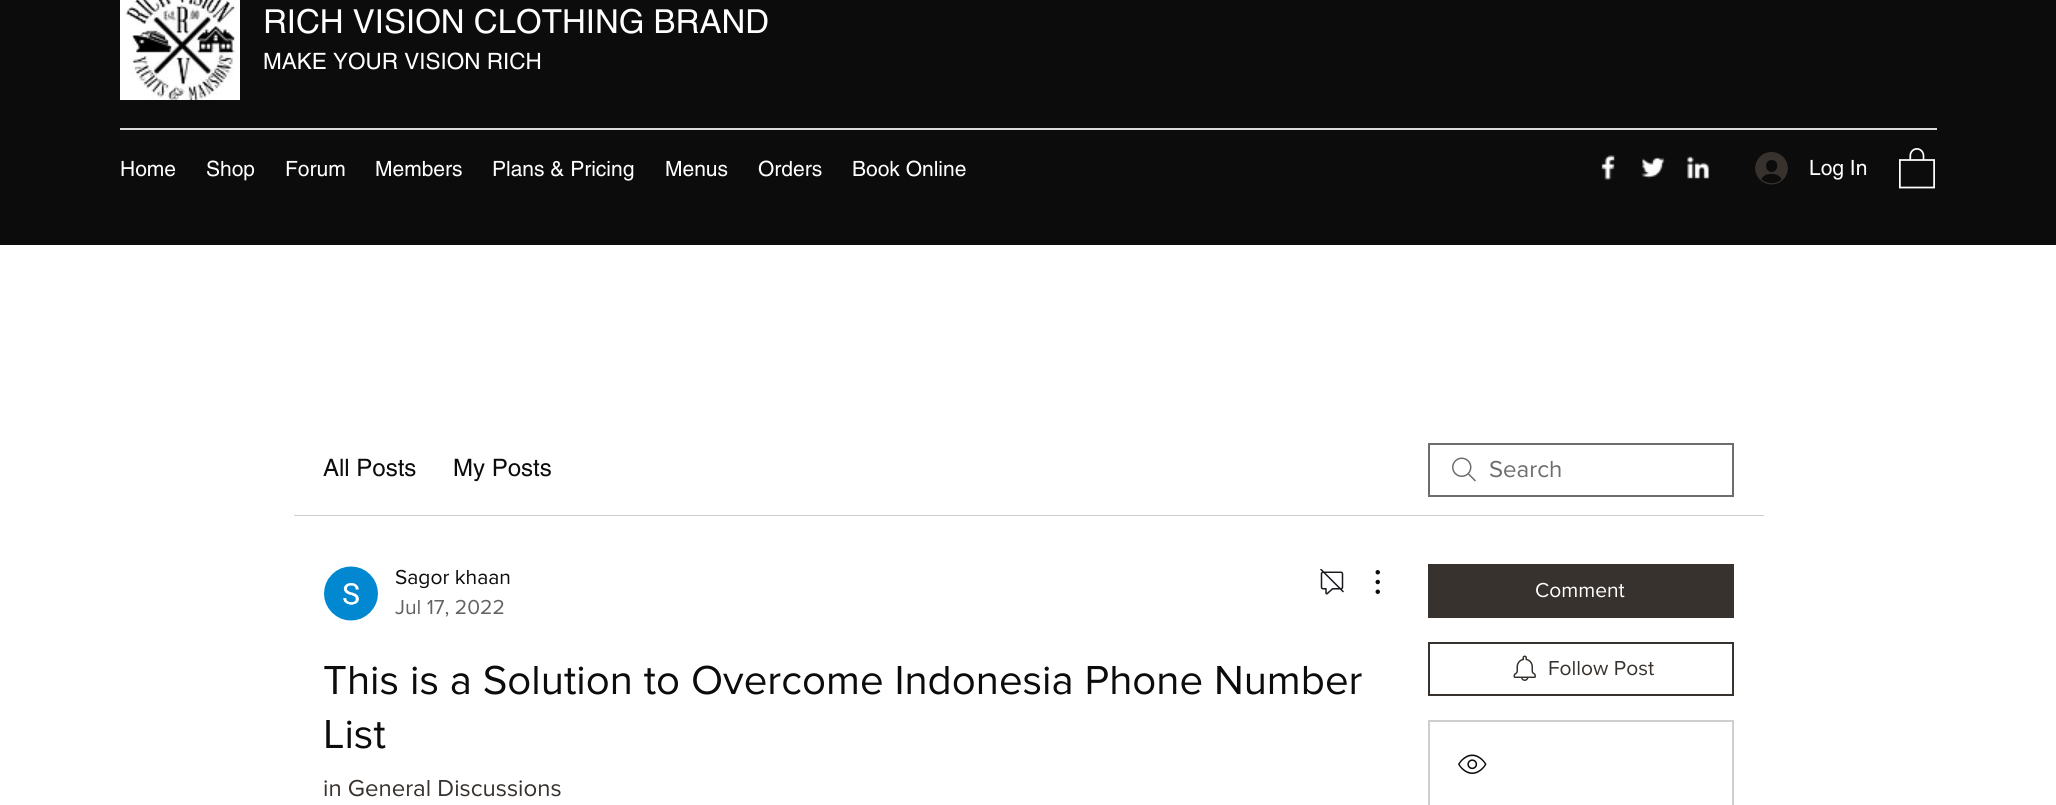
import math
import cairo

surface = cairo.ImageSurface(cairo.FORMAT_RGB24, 2056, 805)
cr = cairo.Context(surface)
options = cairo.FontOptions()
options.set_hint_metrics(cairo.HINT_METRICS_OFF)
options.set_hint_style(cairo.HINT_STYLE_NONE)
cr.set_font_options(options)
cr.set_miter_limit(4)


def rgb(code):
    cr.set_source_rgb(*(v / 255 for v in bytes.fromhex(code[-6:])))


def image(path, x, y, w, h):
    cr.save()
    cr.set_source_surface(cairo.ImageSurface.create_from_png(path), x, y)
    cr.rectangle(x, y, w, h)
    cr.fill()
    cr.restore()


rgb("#ffffff")
cr.paint()
rgb("#0c0c0d")
cr.rectangle(0, 0, 2056, 245)
cr.fill()
image("img/1.png", 120, 0, 120, 100)
rgb("#dbdbdb")
cr.rectangle(120, 128, 1817, 2)
cr.fill()
image("img/2.png", 1601, 155, 14, 25)
image("img/3.png", 1641, 157, 24, 22)
image("img/4.png", 1687, 156, 23, 23)
image("img/5.png", 1755, 152, 33, 33)
image("img/6.png", 1899, 148, 36, 41)
rgb("#cececf")
cr.rectangle(294, 515, 1470, 1)
cr.fill()
image("img/7.png", 1452, 457, 24, 25)
cr.rectangle(1429, 444, 304, 52)
rgb("#6d6d6e")
cr.stroke()
image("img/8.png", 324, 566, 54, 55)
image("img/9.png", 1320, 569, 24, 26)
image("img/10.png", 1375, 570, 5, 24)
rgb("#37322e")
cr.rectangle(1428, 564, 306, 54)
cr.fill()
cr.rectangle(1429, 643, 304, 52)
cr.stroke()
image("img/11.png", 1513, 655, 23, 26)
cr.rectangle(1429, 721, 304, 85)
rgb("#cececf")
cr.stroke()
image("img/12.png", 1458, 754, 29, 20)
cr.select_font_face("helvetica")
cr.set_font_size(33)
rgb("#ffffff")
cr.move_to(263, 33)
cr.show_text("RICH VISION CLOTHING BRAND")
cr.set_font_size(22.5)
cr.move_to(263, 69)
cr.show_text("MAKE YOUR VISION RICH")
cr.set_font_size(21)
for x, y, s in [
    (120, 176, "Home"),
    (206, 176, "Shop"),
    (285, 176, "Forum"),
    (375, 176, "Members"),
    (492, 176, "Plans & Pricing"),
    (665, 176, "Menus"),
    (758, 176, "Orders"),
    (852, 176, "Book Online"),
    (1809, 175, "Log In"),
]:
    cr.move_to(x, y)
    cr.show_text(s)
cr.set_font_size(24)
rgb("#0c0c0d")
cr.move_to(323, 476)
cr.show_text("All Posts")
cr.move_to(453, 476)
cr.show_text("My Posts")
cr.select_font_face("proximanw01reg")
rgb("#6d6d6e")
cr.move_to(1489, 477)
cr.show_text("Search")
cr.set_font_size(21)
rgb("#0c0c0d")
cr.move_to(395, 584)
cr.show_text("Sagor khaan")
rgb("#636364")
cr.move_to(395, 614)
cr.show_text("Jul 17, 2022")
cr.set_font_size(42)
rgb("#0c0c0d")
cr.move_to(323, 694)
cr.show_text("This is a Solution to Overcome Indonesia Phone Number")
cr.move_to(323, 748)
cr.show_text("List")
cr.set_font_size(24)
rgb("#37322e")
cr.move_to(323, 796)
cr.show_text("in General Discussions")
cr.set_font_size(21)
rgb("#ffffff")
cr.move_to(1535, 597)
cr.show_text("Comment")
rgb("#37322e")
cr.move_to(1548, 675)
cr.show_text("Follow Post")
surface.write_to_png("page.png")
